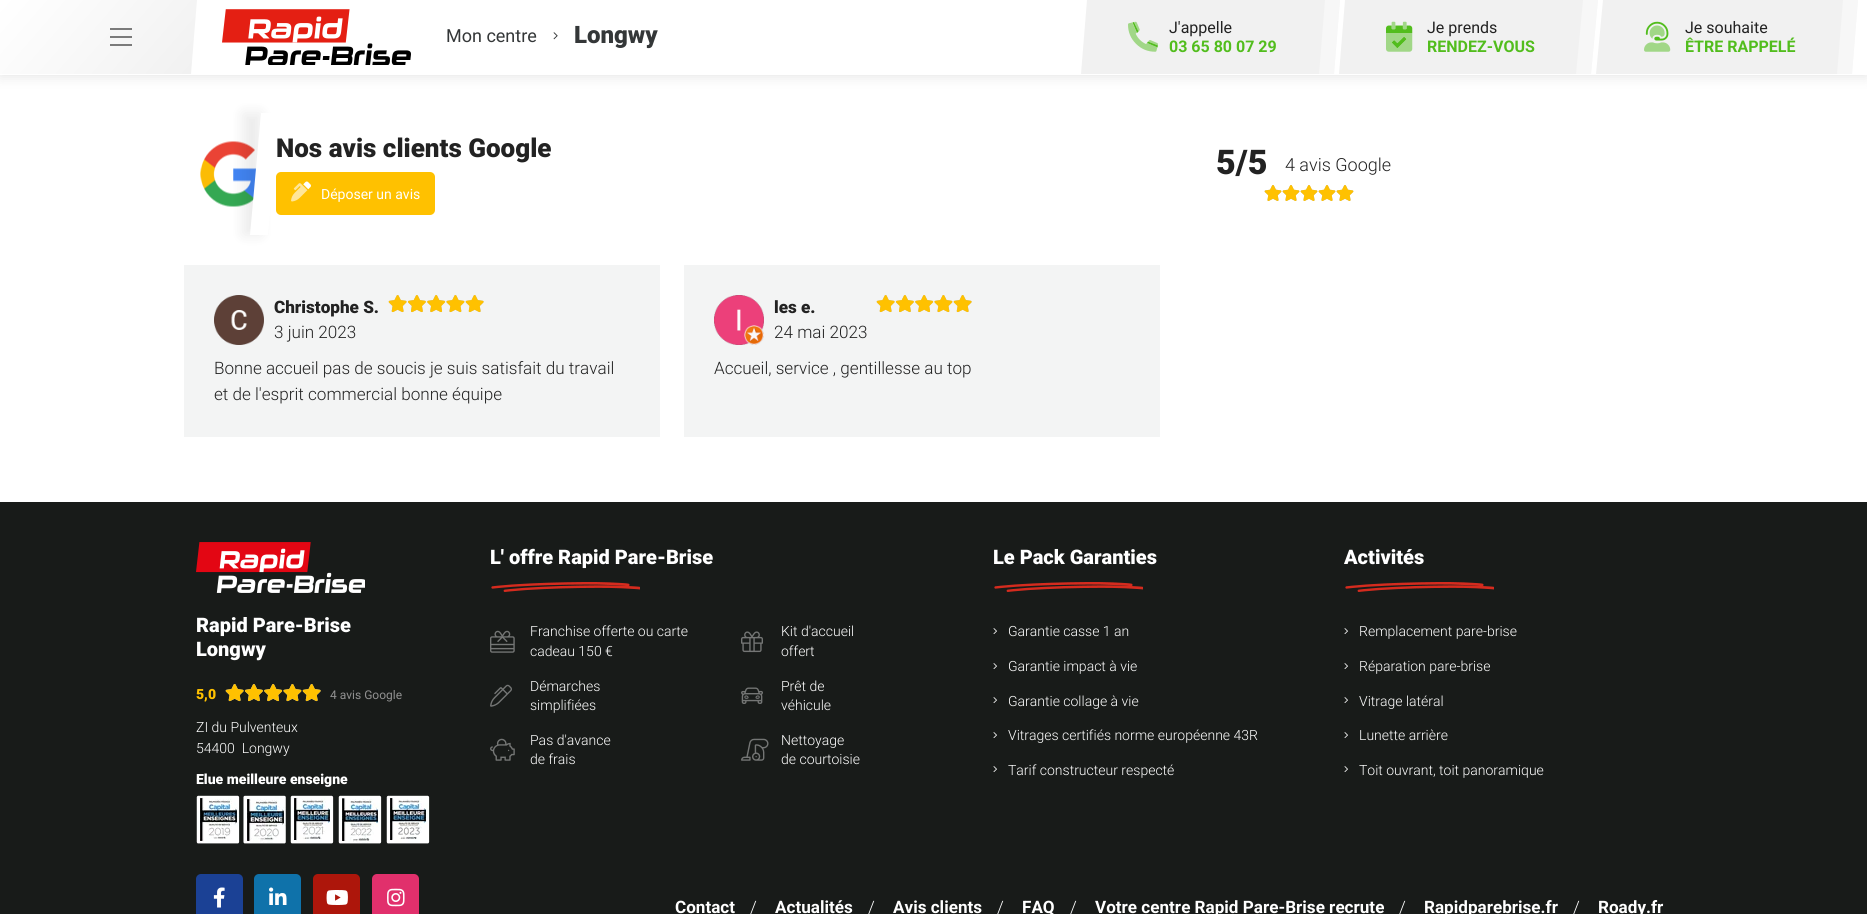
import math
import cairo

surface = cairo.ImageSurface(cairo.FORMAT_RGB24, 1867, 914)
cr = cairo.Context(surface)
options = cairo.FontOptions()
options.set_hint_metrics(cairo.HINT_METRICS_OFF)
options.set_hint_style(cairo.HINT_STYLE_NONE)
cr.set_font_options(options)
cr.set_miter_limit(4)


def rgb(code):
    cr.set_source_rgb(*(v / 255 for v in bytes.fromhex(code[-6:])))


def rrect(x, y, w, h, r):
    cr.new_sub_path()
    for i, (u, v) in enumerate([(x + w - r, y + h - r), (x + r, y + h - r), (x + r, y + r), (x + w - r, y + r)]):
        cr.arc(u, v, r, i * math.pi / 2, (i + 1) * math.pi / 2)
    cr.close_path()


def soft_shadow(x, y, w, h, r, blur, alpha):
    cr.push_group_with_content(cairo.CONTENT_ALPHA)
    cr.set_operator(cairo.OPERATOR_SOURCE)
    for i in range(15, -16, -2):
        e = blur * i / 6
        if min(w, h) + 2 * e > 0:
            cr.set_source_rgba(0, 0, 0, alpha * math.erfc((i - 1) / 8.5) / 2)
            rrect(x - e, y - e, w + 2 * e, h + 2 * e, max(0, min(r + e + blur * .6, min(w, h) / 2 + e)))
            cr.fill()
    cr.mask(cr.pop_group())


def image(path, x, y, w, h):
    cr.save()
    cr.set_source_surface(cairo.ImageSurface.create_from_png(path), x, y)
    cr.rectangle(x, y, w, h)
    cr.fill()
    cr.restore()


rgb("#ffffff")
cr.paint()
rgb("#000000")
soft_shadow(0, 2, 1867, 75, 0, 6.5, 0.1)
rgb("#ffffff")
cr.rectangle(0, 0, 1867, 75)
cr.fill()
gradient = cairo.LinearGradient(24, -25, 168, 100)
gradient.add_color_stop_rgba(0, 1, 1, 1, 1)
gradient.add_color_stop_rgba(1, 0.945, 0.945, 0.945, 1)
cr.set_source(gradient)
cr.new_path()
cr.move_to(1, 0)
cr.line_to(197, 0)
cr.line_to(191, 74)
cr.line_to(-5, 74)
cr.close_path()
cr.fill()
image("img/1.png", 110, 28, 22, 18)
image("img/2.png", 222, 9, 189, 56)
image("img/3.png", 553, 32, 5, 8)
rgb("#f1f1f1")
cr.new_path()
cr.move_to(1087, 0)
cr.line_to(1340, 0)
cr.line_to(1334, 74)
cr.line_to(1081, 74)
cr.close_path()
cr.fill()
rgb("#52bd1d")
cr.new_path()
cr.move_to(1132.5, 22.5)
cr.line_to(1134, 22)
cr.line_to(1138.5, 31.5)
cr.line_to(1137, 33)
cr.close_path()
cr.move_to(1148, 41.5)
cr.line_to(1158, 45.5)
cr.line_to(1157.5, 47.5)
cr.line_to(1147, 43)
cr.close_path()
cr.fill()
image("img/4.png", 1128, 21, 30, 31)
cr.set_source_rgba(1, 1, 1, 0.4)
cr.new_path()
cr.move_to(1325, 0)
cr.line_to(1340, 0)
cr.line_to(1334, 74)
cr.line_to(1319, 74)
cr.close_path()
cr.fill()
rgb("#f1f1f1")
cr.new_path()
cr.move_to(1345, 0)
cr.line_to(1598, 0)
cr.line_to(1591, 74)
cr.line_to(1339, 74)
cr.close_path()
cr.fill()
image("img/6.png", 1386, 25, 27, 24)
image("img/5.png", 1386, 21, 27, 31)
cr.set_source_rgba(1, 1, 1, 0.4)
cr.new_path()
cr.move_to(1583, 0)
cr.line_to(1598, 0)
cr.line_to(1591, 74)
cr.line_to(1576, 74)
cr.close_path()
cr.fill()
rgb("#f1f1f1")
cr.new_path()
cr.move_to(1603, 0)
cr.line_to(1858, 0)
cr.line_to(1852, 74)
cr.line_to(1596, 74)
cr.close_path()
cr.fill()
image("img/7.png", 1645, 21, 24, 20)
image("img/8.png", 1644, 25, 27, 27)
cr.set_source_rgba(1, 1, 1, 0.4)
cr.new_path()
cr.move_to(1843, 0)
cr.line_to(1858, 0)
cr.line_to(1852, 74)
cr.line_to(1837, 74)
cr.close_path()
cr.fill()
image("img/9.png", 200, 141, 57, 66)
rgb("#ffc100")
rrect(276, 172, 159, 43, 5)
cr.fill()
rgb("#000000")
soft_shadow(243, 113, 18, 122, 0, 7, 0.08)
image("img/10.png", 303, 181, 8, 9)
image("img/11.png", 291, 183, 17, 19)
image("img/12.png", 1264, 185, 90, 16)
image("img/13.png", 1264, 185, 90, 16)
rgb("#f3f4f4")
cr.rectangle(184, 265, 476, 172)
cr.fill()
image("img/14.png", 214, 295, 50, 50)
image("img/15.png", 388, 295, 96, 18)
image("img/16.png", 388, 295, 96, 17)
cr.rectangle(684, 265, 476, 172)
cr.fill()
image("img/17.png", 714, 295, 50, 50)
image("img/15.png", 876, 295, 96, 18)
image("img/16.png", 876, 295, 96, 17)
rgb("#181b19")
cr.rectangle(0, 502, 1867, 412)
cr.fill()
image("img/18.png", 196, 542, 169, 51)
image("img/19.png", 225, 684, 96, 18)
image("img/20.png", 225, 684, 96, 17)
image("img/21.png", 196, 795, 44, 49)
image("img/22.png", 243, 795, 43, 49)
image("img/23.png", 290, 795, 44, 49)
image("img/24.png", 338, 795, 44, 49)
image("img/25.png", 386, 795, 44, 49)
rgb("#1b4195")
rrect(196, 874, 47, 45, 5)
cr.fill()
image("img/26.png", 213, 887, 12, 21)
rgb("#0f72aa")
rrect(254, 874, 47, 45, 5)
cr.fill()
image("img/27.png", 269, 887, 18, 18)
rgb("#ad160b")
rrect(313, 874, 47, 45, 5)
cr.fill()
image("img/28.png", 326, 890, 22, 15)
rgb("#e1306c")
rrect(372, 874, 47, 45, 5)
cr.fill()
image("img/29.png", 387, 888, 18, 19)
image("img/30.png", 491, 582, 149, 10)
image("img/31.png", 490, 630, 25, 23)
image("img/32.png", 490, 684, 22, 23)
image("img/33.png", 490, 738, 25, 23)
image("img/34.png", 741, 631, 22, 22)
image("img/35.png", 741, 687, 22, 17)
image("img/36.png", 741, 738, 28, 23)
image("img/30.png", 994, 582, 149, 10)
image("img/37.png", 993, 628, 4, 6)
image("img/37.png", 993, 663, 4, 6)
image("img/37.png", 993, 697, 4, 6)
image("img/37.png", 993, 732, 4, 6)
image("img/37.png", 993, 766, 4, 6)
image("img/30.png", 1345, 582, 149, 10)
image("img/37.png", 1344, 628, 4, 6)
image("img/37.png", 1344, 663, 4, 6)
image("img/37.png", 1344, 697, 4, 6)
image("img/37.png", 1344, 732, 4, 6)
image("img/37.png", 1344, 766, 4, 6)
cr.select_font_face("Roboto")
cr.set_font_size(18)
rgb("#343738")
cr.move_to(446, 42)
cr.show_text("Mon centre")
cr.select_font_face("Roboto Black")
cr.set_font_size(24)
cr.move_to(574, 43)
cr.show_text("Longwy")
cr.select_font_face("Roboto")
cr.set_font_size(16)
rgb("#222222")
cr.move_to(1169, 33)
cr.show_text("J'appelle")
cr.select_font_face("Roboto", cairo.FONT_SLANT_NORMAL, cairo.FONT_WEIGHT_BOLD)
rgb("#52bd1d")
cr.move_to(1169, 52)
cr.show_text("03 65 80 07 29")
cr.select_font_face("Roboto")
rgb("#222222")
cr.move_to(1427, 33)
cr.show_text("Je prends")
cr.select_font_face("Roboto", cairo.FONT_SLANT_NORMAL, cairo.FONT_WEIGHT_BOLD)
rgb("#52bd1d")
cr.move_to(1427, 52)
cr.show_text("RENDEZ-VOUS")
cr.select_font_face("Roboto")
rgb("#222222")
cr.move_to(1685, 33)
cr.show_text("Je souhaite")
cr.select_font_face("Roboto", cairo.FONT_SLANT_NORMAL, cairo.FONT_WEIGHT_BOLD)
rgb("#52bd1d")
cr.move_to(1685, 52)
cr.show_text("ÊTRE RAPPELÉ")
cr.select_font_face("Roboto Black")
cr.set_font_size(26)
rgb("#222222")
cr.move_to(276, 157)
cr.show_text("Nos avis clients Google")
rgb("#ffffff")
cr.new_path()
cr.move_to(261, 113)
cr.line_to(279, 113)
cr.line_to(268, 235)
cr.line_to(250, 235)
cr.close_path()
cr.fill()
cr.select_font_face("Roboto")
cr.set_font_size(14)
cr.move_to(321, 199)
cr.show_text("Déposer un avis")
cr.select_font_face("Roboto Black")
cr.set_font_size(34)
rgb("#222222")
cr.move_to(1216, 174)
cr.show_text("5/5")
cr.select_font_face("Roboto Light")
cr.set_font_size(18)
cr.move_to(1285, 171)
cr.show_text("4 avis Google")
cr.select_font_face("Roboto Black")
cr.set_font_size(17.1)
cr.move_to(274, 313)
cr.show_text("Christophe S.")
cr.select_font_face("Roboto Light")
for x, y, s in [
    (274, 338, "3 juin 2023"),
    (214, 374, "Bonne accueil pas de soucis je suis satisfait du travail"),
    (214, 400, "et de l'esprit commercial bonne équipe"),
]:
    cr.move_to(x, y)
    cr.show_text(s)
cr.select_font_face("Roboto Black")
cr.move_to(774, 313)
cr.show_text("les e.")
cr.select_font_face("Roboto Light")
cr.move_to(774, 338)
cr.show_text("24 mai 2023")
cr.move_to(714, 374)
cr.show_text("Accueil, service , gentillesse au top")
cr.select_font_face("Roboto Black")
cr.set_font_size(20)
rgb("#ffffff")
cr.move_to(196, 632)
cr.show_text("Rapid Pare-Brise")
cr.move_to(196, 656)
cr.show_text("Longwy")
cr.set_font_size(14)
rgb("#ffc100")
cr.move_to(196, 699)
cr.show_text("5,0")
cr.select_font_face("Roboto")
cr.set_font_size(12)
rgb("#919191")
cr.move_to(330, 699)
cr.show_text("4 avis Google")
cr.select_font_face("Roboto Light")
cr.set_font_size(14)
rgb("#ffffff")
cr.move_to(196, 732)
cr.show_text("ZI du Pulventeux")
cr.move_to(196, 753)
cr.show_text("54400  Longwy")
cr.select_font_face("Roboto Black")
cr.move_to(196, 784)
cr.show_text("Elue meilleure enseigne")
cr.set_font_size(20)
cr.move_to(490, 564)
cr.show_text("L' offre Rapid Pare-Brise")
cr.select_font_face("Roboto Light")
cr.set_font_size(14)
for x, y, s in [
    (530, 636, "Franchise offerte ou carte"),
    (530, 656, "cadeau 150 €"),
    (530, 691, "Démarches"),
    (530, 710, "simplifiées"),
    (530, 745, "Pas d'avance"),
    (530, 764, "de frais"),
    (781, 636, "Kit d'accueil"),
    (781, 656, "offert"),
    (781, 691, "Prêt de"),
    (781, 710, "véhicule"),
    (781, 745, "Nettoyage"),
    (781, 764, "de courtoisie"),
]:
    cr.move_to(x, y)
    cr.show_text(s)
cr.select_font_face("Roboto Black")
cr.set_font_size(20)
cr.move_to(993, 564)
cr.show_text("Le Pack Garanties")
cr.select_font_face("Roboto Light")
cr.set_font_size(14)
for x, y, s in [
    (1008, 636, "Garantie casse 1 an"),
    (1008, 671, "Garantie impact à vie"),
    (1008, 706, "Garantie collage à vie"),
    (1008, 740, "Vitrages certifiés norme européenne 43R"),
    (1008, 775, "Tarif constructeur respecté"),
]:
    cr.move_to(x, y)
    cr.show_text(s)
cr.select_font_face("Roboto Black")
cr.set_font_size(20)
cr.move_to(1344, 564)
cr.show_text("Activités")
cr.select_font_face("Roboto Light")
cr.set_font_size(14)
for x, y, s in [
    (1359, 636, "Remplacement pare-brise"),
    (1359, 671, "Réparation pare-brise"),
    (1359, 706, "Vitrage latéral"),
    (1359, 740, "Lunette arrière"),
    (1359, 775, "Toit ouvrant, toit panoramique"),
]:
    cr.move_to(x, y)
    cr.show_text(s)
cr.select_font_face("Roboto", cairo.FONT_SLANT_NORMAL, cairo.FONT_WEIGHT_BOLD)
cr.set_font_size(17.1)
cr.move_to(675, 913)
cr.show_text("Contact")
cr.select_font_face("Roboto Light")
cr.move_to(750, 913)
cr.show_text("/")
cr.select_font_face("Roboto", cairo.FONT_SLANT_NORMAL, cairo.FONT_WEIGHT_BOLD)
cr.move_to(775, 913)
cr.show_text("Actualités")
cr.select_font_face("Roboto Light")
cr.move_to(868, 913)
cr.show_text("/")
cr.select_font_face("Roboto", cairo.FONT_SLANT_NORMAL, cairo.FONT_WEIGHT_BOLD)
cr.move_to(893, 913)
cr.show_text("Avis clients")
cr.select_font_face("Roboto Light")
cr.move_to(997, 913)
cr.show_text("/")
cr.select_font_face("Roboto", cairo.FONT_SLANT_NORMAL, cairo.FONT_WEIGHT_BOLD)
cr.move_to(1022, 913)
cr.show_text("FAQ")
cr.select_font_face("Roboto Light")
cr.move_to(1070, 913)
cr.show_text("/")
cr.select_font_face("Roboto", cairo.FONT_SLANT_NORMAL, cairo.FONT_WEIGHT_BOLD)
cr.move_to(1095, 913)
cr.show_text("Votre centre Rapid Pare-Brise recrute")
cr.select_font_face("Roboto Light")
cr.move_to(1399, 913)
cr.show_text("/")
cr.select_font_face("Roboto", cairo.FONT_SLANT_NORMAL, cairo.FONT_WEIGHT_BOLD)
cr.move_to(1424, 913)
cr.show_text("Rapidparebrise.fr")
cr.select_font_face("Roboto Light")
cr.move_to(1573, 913)
cr.show_text("/")
cr.select_font_face("Roboto", cairo.FONT_SLANT_NORMAL, cairo.FONT_WEIGHT_BOLD)
cr.move_to(1598, 913)
cr.show_text("Roady.fr")
surface.write_to_png("page.png")
